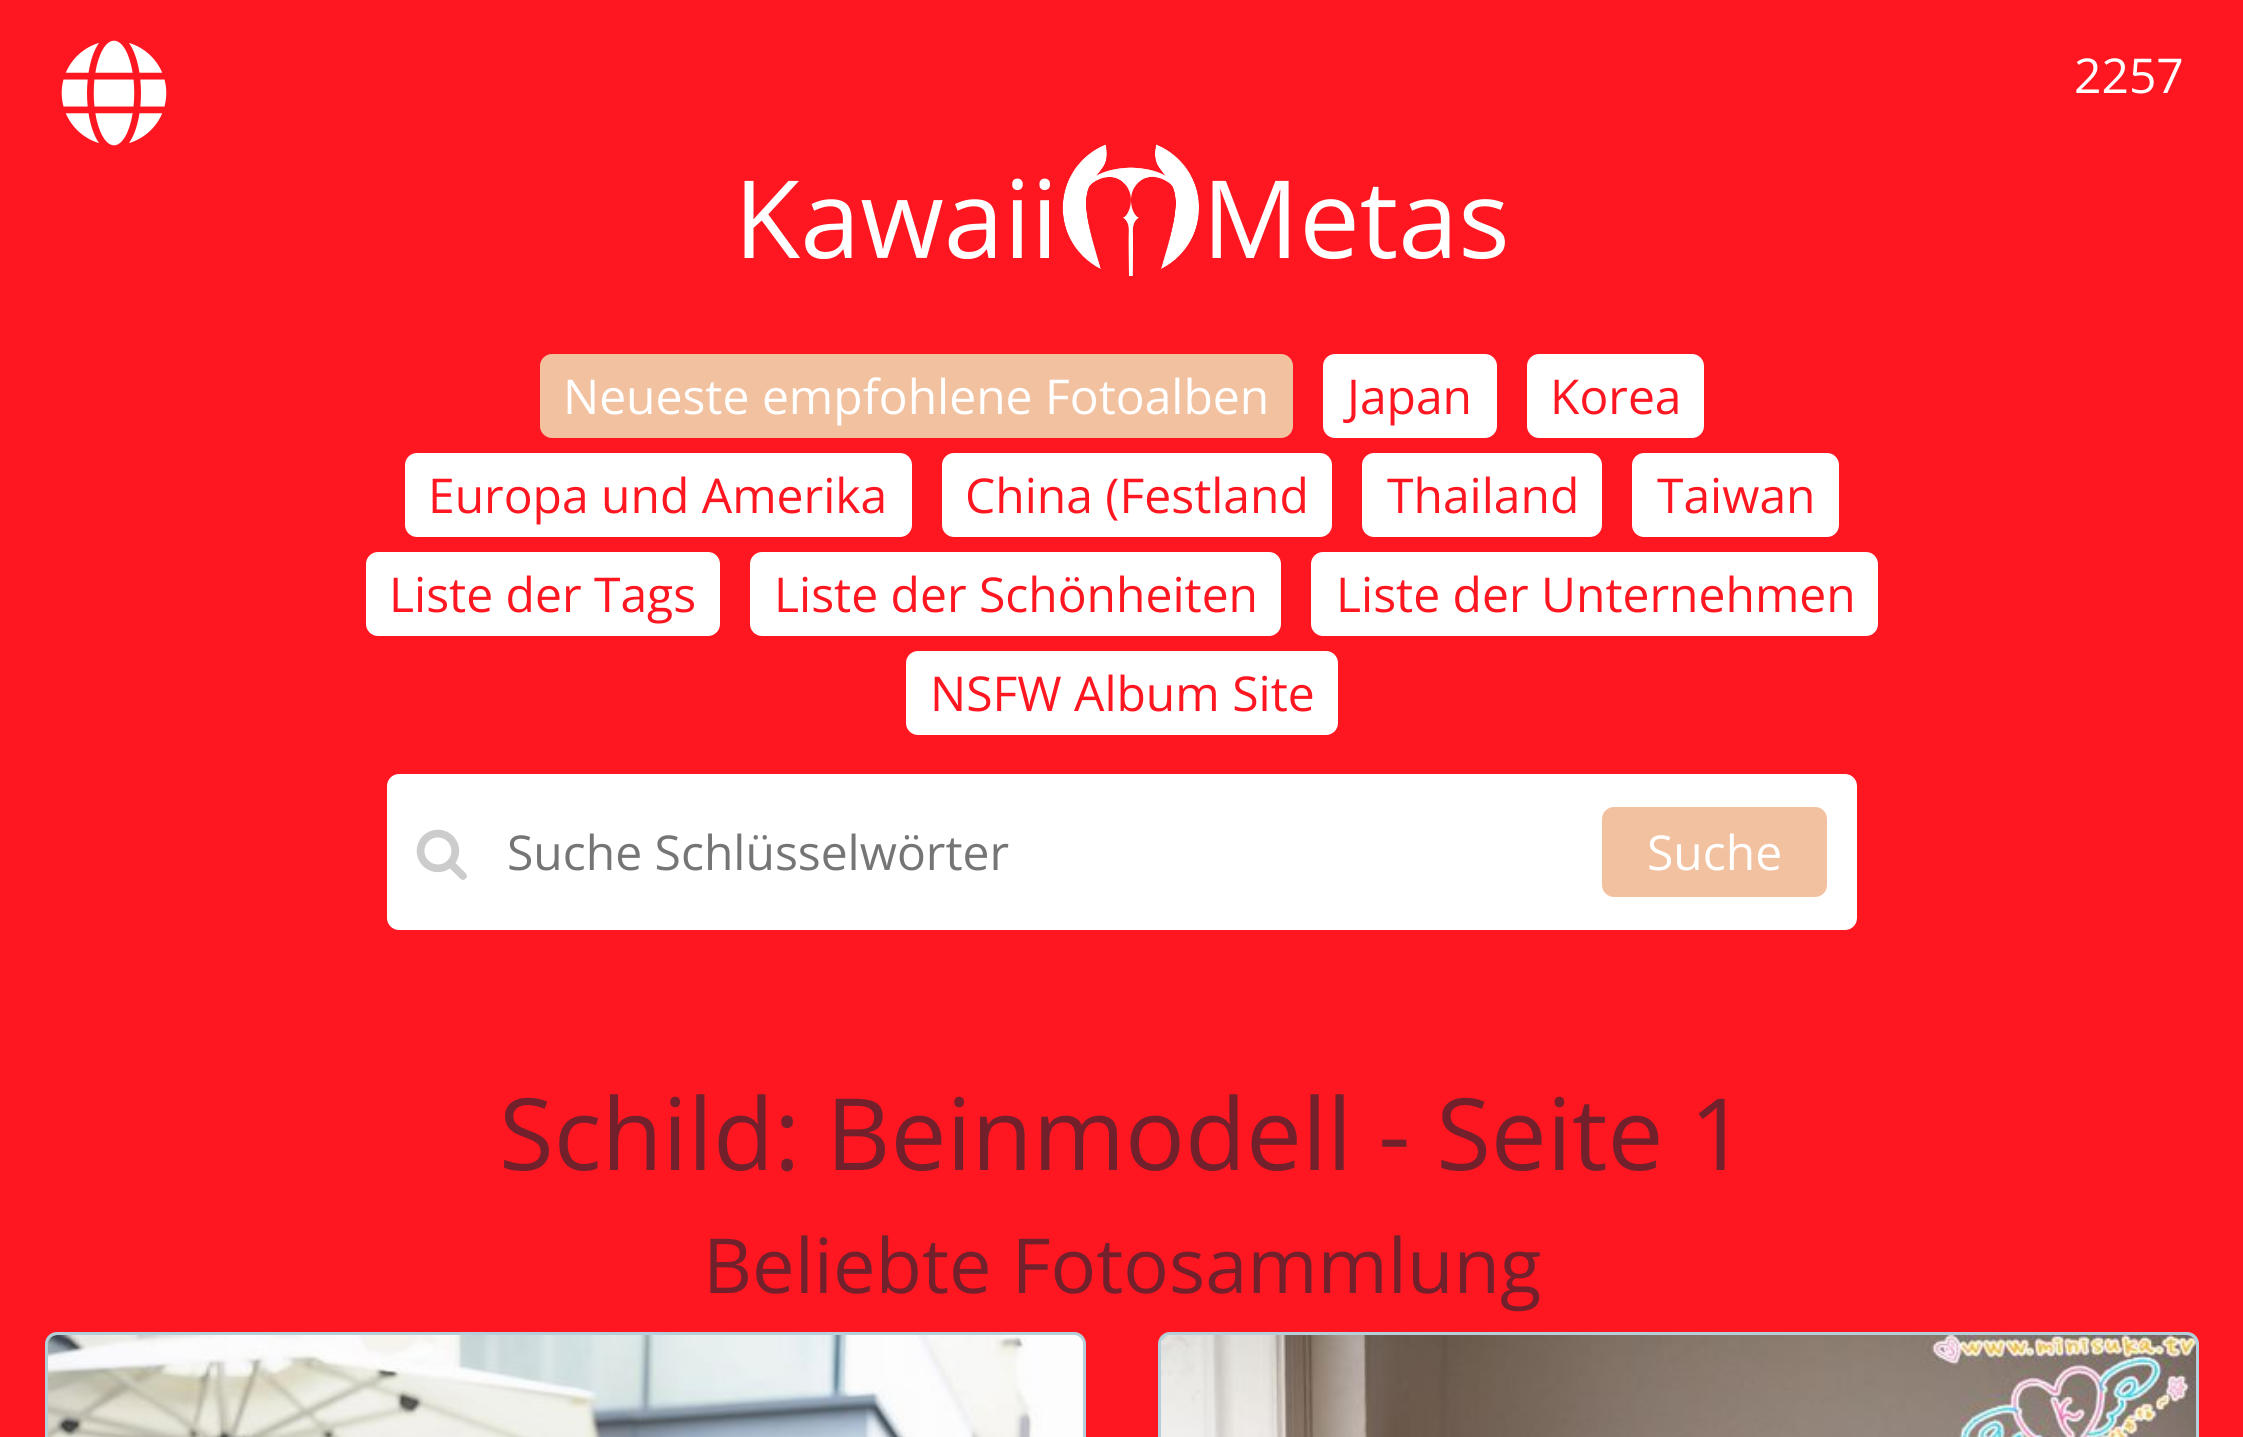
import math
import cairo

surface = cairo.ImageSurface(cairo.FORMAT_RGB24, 2243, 1437)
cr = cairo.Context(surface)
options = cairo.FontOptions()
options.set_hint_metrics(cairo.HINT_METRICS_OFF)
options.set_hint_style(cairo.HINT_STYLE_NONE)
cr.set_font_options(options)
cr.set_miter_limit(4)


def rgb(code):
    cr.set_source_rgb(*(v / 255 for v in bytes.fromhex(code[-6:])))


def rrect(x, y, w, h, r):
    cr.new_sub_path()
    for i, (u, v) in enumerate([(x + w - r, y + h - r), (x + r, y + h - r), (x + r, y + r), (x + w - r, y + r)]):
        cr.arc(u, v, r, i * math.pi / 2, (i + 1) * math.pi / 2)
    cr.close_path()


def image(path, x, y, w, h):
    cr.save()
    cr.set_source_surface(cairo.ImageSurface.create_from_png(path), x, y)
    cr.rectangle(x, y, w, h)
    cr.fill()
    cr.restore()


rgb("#fe1620")
cr.paint()
image("img/1.png", 61, 40, 106, 106)
image("img/2.png", 1062, 144, 137, 133)
rgb("#f2c1a0")
rrect(540, 354, 753, 84, 12)
cr.fill()
rgb("#ffffff")
rrect(1323, 354, 174, 84, 12)
cr.fill()
rrect(1527, 354, 177, 84, 12)
cr.fill()
rrect(405, 453, 507, 84, 12)
cr.fill()
rrect(942, 453, 390, 84, 12)
cr.fill()
rrect(1362, 453, 240, 84, 12)
cr.fill()
rrect(1632, 453, 207, 84, 12)
cr.fill()
rrect(366, 552, 354, 84, 12)
cr.fill()
rrect(750, 552, 531, 84, 12)
cr.fill()
rrect(1311, 552, 567, 84, 12)
cr.fill()
rrect(906, 651, 432, 84, 12)
cr.fill()
rrect(387, 774, 1470, 156, 12)
cr.fill()
image("img/3.png", 416, 829, 51, 51)
rgb("#f2c1a0")
rrect(1602, 807, 225, 90, 12)
cr.fill()
rgb("#ccebf6")
rrect(45, 1332, 1041, 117, 12)
cr.fill()
rrect(46.5, 1333.5, 1038, 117, 10.5)
cr.set_source_rgba(0, 0, 0, 0.12)
cr.set_line_width(3)
cr.stroke()
image("img/4.png", 48, 1335, 1035, 102)
rgb("#ccebf6")
rrect(1158, 1332, 1041, 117, 12)
cr.fill()
rrect(1159.5, 1333.5, 1038, 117, 10.5)
cr.set_source_rgba(0, 0, 0, 0.12)
cr.stroke()
image("img/5.png", 1161, 1335, 1035, 102)
cr.select_font_face("Open Sans")
cr.set_font_size(48)
rgb("#ffffff")
cr.move_to(2074, 93)
cr.show_text("2257")
cr.set_font_size(108)
cr.move_to(734, 258)
cr.show_text("Kawaii")
cr.move_to(1202, 258)
cr.show_text("Metas")
cr.set_font_size(48)
cr.move_to(563, 414)
cr.show_text("Neueste empfohlene Fotoalben")
rgb("#fe1620")
for x, y, s in [
    (1347, 414, "Japan"),
    (1550, 414, "Korea"),
    (428, 513, "Europa und Amerika"),
    (965, 513, "China (Festland"),
    (1387, 513, "Thailand"),
    (1657, 513, "Taiwan"),
    (389, 612, "Liste der Tags"),
    (774, 612, "Liste der Schönheiten"),
    (1336, 612, "Liste der Unternehmen"),
    (930, 711, "NSFW Album Site"),
]:
    cr.move_to(x, y)
    cr.show_text(s)
rgb("#757575")
cr.move_to(507, 870)
cr.show_text("Suche Schlüsselwörter")
rgb("#ffffff")
cr.move_to(1647, 870)
cr.show_text("Suche")
cr.set_font_size(99.7)
rgb("#72202c")
cr.move_to(499, 1170)
cr.show_text("Schild: Beinmodell - Seite 1")
cr.set_font_size(75.9)
cr.move_to(703, 1293)
cr.show_text("Beliebte Fotosammlung")
surface.write_to_png("page.png")
